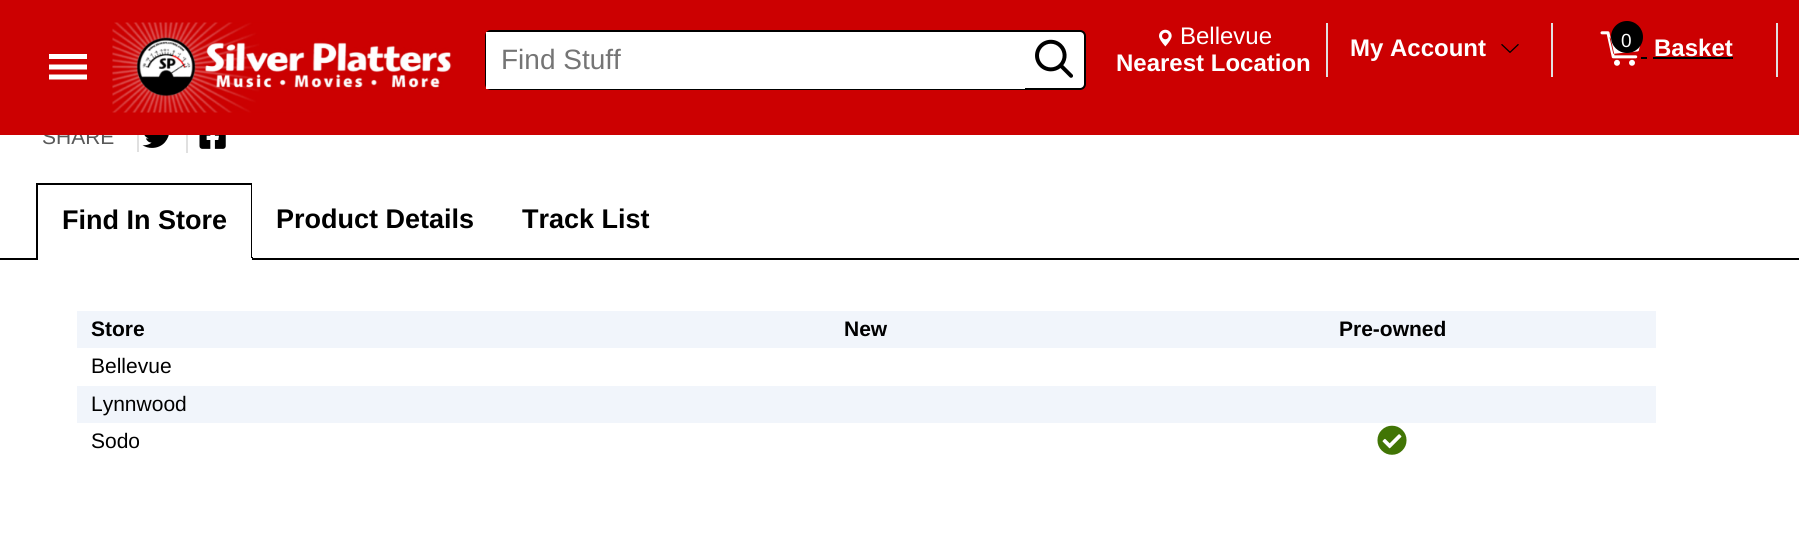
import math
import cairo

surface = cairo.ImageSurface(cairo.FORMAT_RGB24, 1799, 541)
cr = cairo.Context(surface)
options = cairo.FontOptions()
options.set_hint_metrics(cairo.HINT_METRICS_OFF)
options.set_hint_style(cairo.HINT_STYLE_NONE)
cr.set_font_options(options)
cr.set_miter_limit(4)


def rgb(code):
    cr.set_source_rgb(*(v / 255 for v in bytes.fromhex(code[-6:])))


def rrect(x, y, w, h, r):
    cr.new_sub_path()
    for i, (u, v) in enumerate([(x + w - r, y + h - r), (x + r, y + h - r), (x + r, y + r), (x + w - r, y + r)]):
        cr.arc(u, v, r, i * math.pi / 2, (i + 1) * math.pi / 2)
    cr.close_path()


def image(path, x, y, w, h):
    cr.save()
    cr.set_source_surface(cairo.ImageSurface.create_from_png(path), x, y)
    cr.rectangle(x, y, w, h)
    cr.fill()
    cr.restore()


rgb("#ffffff")
cr.paint()
rgb("#e0e0e0")
cr.rectangle(137, 135, 2, 17)
cr.fill()
image("img/6.png", 142, 135, 27, 13)
cr.rectangle(186, 135, 2, 18)
cr.fill()
image("img/7.png", 199, 135, 27, 14)
for x, y, w, h, color in [
    (36, 183, 216, 2, "#000000"),
    (0, 258, 1799, 2, "#000000"),
    (251, 183, 2, 77, "#000000"),
    (36, 258, 216, 2, "#ffffff"),
    (36, 183, 2, 77, "#000000"),
    (252, 183, 1, 74, "#ffffff"),
    (77, 311, 1579, 37, "#f1f5fb"),
    (77, 386, 1579, 37, "#f1f5fb"),
]:
    rgb(color)
    cr.rectangle(x, y, w, h)
    cr.fill()
image("img/8.png", 1377, 425, 30, 30)
cr.select_font_face("Liberation Sans")
cr.set_font_size(21)
rgb("#595959")
cr.move_to(42, 144)
cr.show_text("SHARE")
rgb("#cc0001")
cr.rectangle(0, 0, 1799, 135)
cr.fill()
rgb("#ffffff")
rrect(486, 31, 599, 58, 5)
cr.fill_preserve()
rgb("#000000")
cr.stroke()
image("img/2.png", 1035, 39, 38, 39)
rgb("#ffffff")
cr.rectangle(486, 32, 539, 57)
cr.fill()
cr.set_font_size(28)
rgb("#757575")
cr.move_to(501, 69)
cr.show_text("Find Stuff")
image("img/5.png", 1600, 31, 41, 35)
rgb("#000000")
cr.arc(1627, 37, 16, 0, 2 * math.pi)
cr.fill()
cr.set_font_size(19)
rgb("#ffffff")
cr.move_to(1621, 47)
cr.show_text("0")
cr.select_font_face("Liberation Sans", cairo.FONT_SLANT_NORMAL, cairo.FONT_WEIGHT_BOLD)
cr.set_font_size(24)
cr.move_to(1654, 56)
cr.show_text("Basket")
for x, y, w, h, color in [
    (1653, 57, 80, 2, "#000000"),
    (1641, 57, 6, 2, "#000000"),
    (1776, 23, 2, 54, "#e0e0e0"),
]:
    rgb(color)
    cr.rectangle(x, y, w, h)
    cr.fill()
image("img/4.png", 1501, 44, 18, 9)
rgb("#ffffff")
cr.move_to(1350, 56)
cr.show_text("My Account")
rgb("#e0e0e0")
cr.rectangle(1551, 23, 2, 54)
cr.fill()
rgb("#ffffff")
cr.move_to(1116, 71)
cr.show_text("Nearest Location")
cr.select_font_face("Liberation Sans")
cr.move_to(1180, 44)
cr.show_text("Bellevue")
image("img/3.png", 1159, 29, 13, 18)
rgb("#e0e0e0")
cr.rectangle(1326, 23, 2, 54)
cr.fill()
rgb("#ffffff")
cr.new_path()
cr.move_to(49, 59)
cr.line_to(49, 54)
cr.line_to(87, 54)
cr.line_to(87, 59)
cr.close_path()
cr.move_to(49, 69.5)
cr.line_to(49, 64.5)
cr.line_to(87, 64.5)
cr.line_to(87, 69.5)
cr.close_path()
cr.move_to(49, 79.5)
cr.line_to(49, 74.5)
cr.line_to(87, 74.5)
cr.line_to(87, 79.5)
cr.close_path()
cr.fill()
image("img/1.png", 112, 22, 340, 91)
cr.select_font_face("Liberation Sans", cairo.FONT_SLANT_NORMAL, cairo.FONT_WEIGHT_BOLD)
cr.set_font_size(27)
rgb("#000000")
for x, y, s in [
    (62, 229, "Find In Store"),
    (276, 228, "Product Details"),
    (522, 228, "Track List"),
]:
    cr.move_to(x, y)
    cr.show_text(s)
cr.set_font_size(21)
for x, y, s in [
    (91, 336, "Store"),
    (844, 336, "New"),
    (1339, 336, "Pre-owned"),
]:
    cr.move_to(x, y)
    cr.show_text(s)
cr.select_font_face("Liberation Sans")
for x, y, s in [
    (91, 373, "Bellevue"),
    (91, 411, "Lynnwood"),
    (91, 448, "Sodo"),
]:
    cr.move_to(x, y)
    cr.show_text(s)
surface.write_to_png("page.png")
